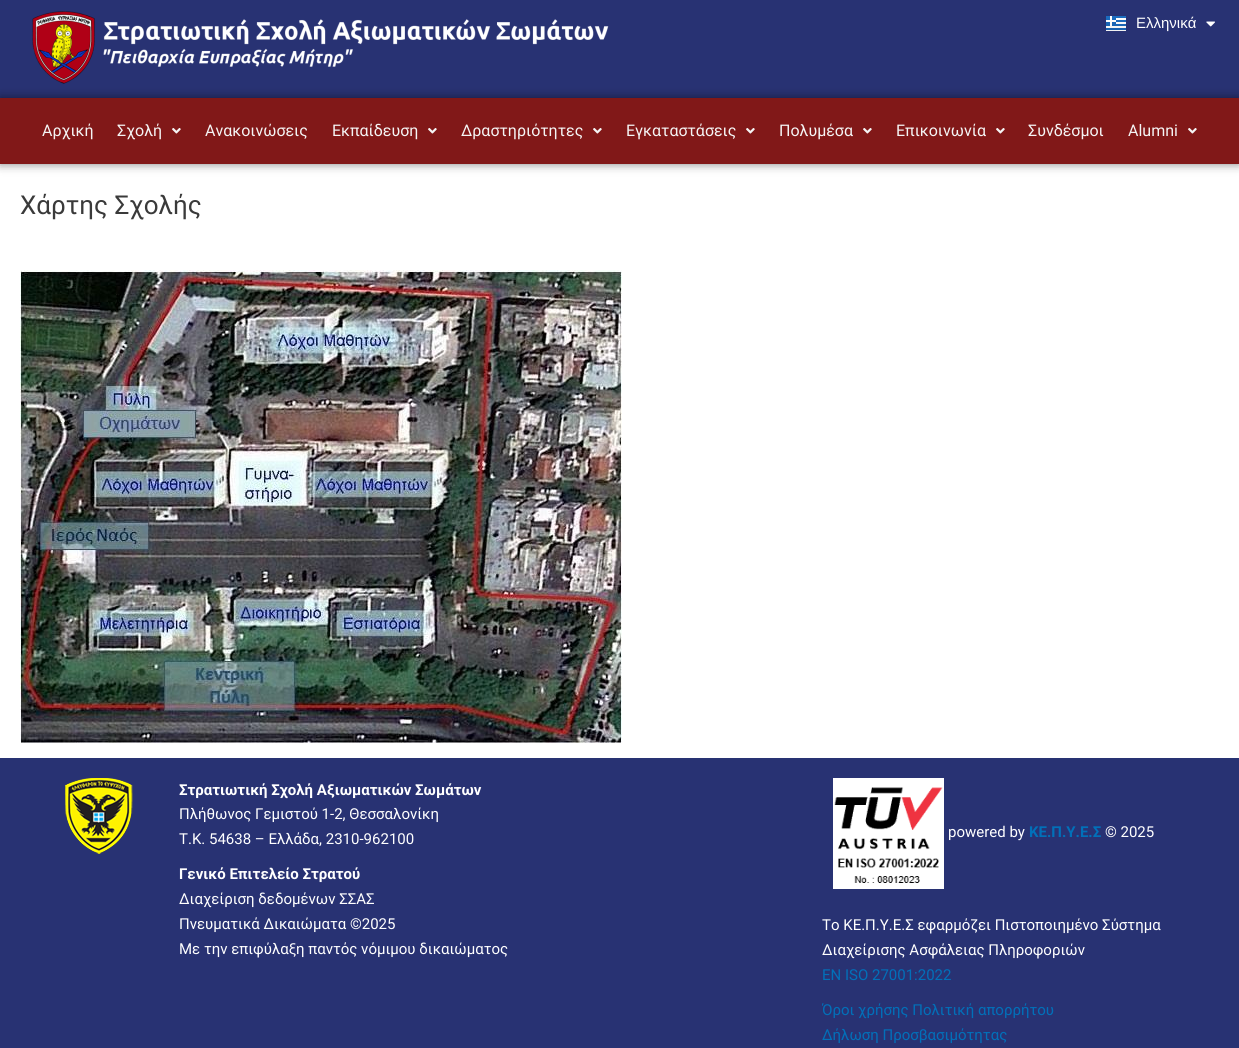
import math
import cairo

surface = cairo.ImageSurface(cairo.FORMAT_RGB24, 1239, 1048)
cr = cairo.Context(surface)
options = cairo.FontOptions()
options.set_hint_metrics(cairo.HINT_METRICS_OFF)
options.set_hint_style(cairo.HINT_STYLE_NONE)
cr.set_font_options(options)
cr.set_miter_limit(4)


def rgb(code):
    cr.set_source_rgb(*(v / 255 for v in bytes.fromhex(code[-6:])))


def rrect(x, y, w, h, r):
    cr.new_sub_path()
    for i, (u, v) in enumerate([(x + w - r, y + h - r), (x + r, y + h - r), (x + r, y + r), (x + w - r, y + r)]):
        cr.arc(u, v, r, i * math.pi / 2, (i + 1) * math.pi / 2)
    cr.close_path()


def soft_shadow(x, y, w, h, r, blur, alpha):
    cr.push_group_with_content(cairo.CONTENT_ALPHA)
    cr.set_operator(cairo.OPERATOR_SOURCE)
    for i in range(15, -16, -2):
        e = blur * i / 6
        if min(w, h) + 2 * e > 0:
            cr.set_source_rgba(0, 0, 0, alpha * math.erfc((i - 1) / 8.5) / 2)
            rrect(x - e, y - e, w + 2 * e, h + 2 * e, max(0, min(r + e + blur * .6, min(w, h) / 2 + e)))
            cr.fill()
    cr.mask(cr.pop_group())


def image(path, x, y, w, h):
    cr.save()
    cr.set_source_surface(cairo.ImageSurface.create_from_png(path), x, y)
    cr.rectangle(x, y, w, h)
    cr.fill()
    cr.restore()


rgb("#ffffff")
cr.paint()
rgb("#283273")
cr.rectangle(0, 0, 1239, 98)
cr.fill()
image("img/1.png", 32, 11, 577, 73)
image("img/2.png", 1106, 16, 20, 15)
image("img/3.png", 1206, 21, 9, 6)
rgb("#000000")
soft_shadow(0, 98, 1239, 66, 0, 5, 0.5)
rgb("#811818")
cr.rectangle(0, 98, 1239, 66)
cr.fill()
image("img/4.png", 172, 128, 9, 6)
image("img/4.png", 428, 128, 9, 6)
image("img/4.png", 593, 128, 9, 6)
image("img/4.png", 746, 128, 9, 6)
image("img/4.png", 863, 128, 9, 6)
image("img/4.png", 996, 128, 9, 6)
image("img/4.png", 1188, 128, 9, 6)
image("img/5.png", 20, 270, 602, 473)
rgb("#283273")
cr.rectangle(0, 758, 1239, 290)
cr.fill()
image("img/6.png", 65, 778, 68, 76)
image("img/7.png", 833, 778, 111, 111)
cr.select_font_face("Liberation Sans")
cr.set_font_size(15)
rgb("#ffffff")
cr.move_to(1136, 28)
cr.show_text("Ελληνικά")
cr.select_font_face("Roboto")
cr.set_font_size(16)
rgb("#f5f5f5")
for x, y, s in [
    (42, 136, "Αρχική"),
    (117, 136, "Σχολή"),
    (205, 136, "Ανακοινώσεις"),
    (332, 136, "Εκπαίδευση"),
    (461, 136, "Δραστηριότητες"),
    (626, 136, "Εγκαταστάσεις"),
    (779, 136, "Πολυμέσα"),
    (896, 136, "Επικοινωνία"),
    (1028, 136, "Συνδέσμοι"),
    (1128, 136, "Alumni"),
]:
    cr.move_to(x, y)
    cr.show_text(s)
cr.set_font_size(26)
rgb("#3a3a3a")
cr.move_to(20, 214)
cr.show_text("Χάρτης Σχολής")
cr.select_font_face("Roboto", cairo.FONT_SLANT_NORMAL, cairo.FONT_WEIGHT_BOLD)
cr.set_font_size(15)
rgb("#ffffff")
cr.move_to(179, 795)
cr.show_text("Στρατιωτική Σχολή Αξιωματικών Σωμάτων")
cr.select_font_face("Roboto")
cr.move_to(179, 819)
cr.show_text("Πλήθωνος Γεμιστού 1-2, Θεσσαλονίκη")
cr.move_to(179, 844)
cr.show_text("Τ.Κ. 54638 – Ελλάδα, 2310-962100")
cr.select_font_face("Roboto", cairo.FONT_SLANT_NORMAL, cairo.FONT_WEIGHT_BOLD)
cr.move_to(179, 879)
cr.show_text("Γενικό Επιτελείο Στρατού")
cr.select_font_face("Roboto")
for x, y, s in [
    (179, 904, "Διαχείριση δεδομένων ΣΣΑΣ"),
    (179, 929, "Πνευματικά Δικαιώματα ©2025"),
    (179, 954, "Με την επιφύλαξη παντός νόμιμου δικαιώματος"),
    (948, 837, "powered by"),
]:
    cr.move_to(x, y)
    cr.show_text(s)
cr.select_font_face("Roboto", cairo.FONT_SLANT_NORMAL, cairo.FONT_WEIGHT_BOLD)
rgb("#0170b9")
cr.move_to(1029, 837)
cr.show_text("ΚΕ.Π.Υ.Ε.Σ")
cr.select_font_face("Roboto")
rgb("#ffffff")
for x, y, s in [
    (1105, 837, "© 2025"),
    (822, 930, "Το ΚΕ.Π.Υ.Ε.Σ εφαρμόζει Πιστοποιημένο Σύστημα"),
    (822, 955, "Διαχείρισης Ασφάλειας Πληροφοριών"),
]:
    cr.move_to(x, y)
    cr.show_text(s)
rgb("#0170b9")
for x, y, s in [
    (822, 980, "EN ISO 27001:2022"),
    (822, 1015, "Όροι χρήσης Πολιτική απορρήτου"),
    (822, 1040, "Δήλωση Προσβασιμότητας"),
]:
    cr.move_to(x, y)
    cr.show_text(s)
surface.write_to_png("page.png")
